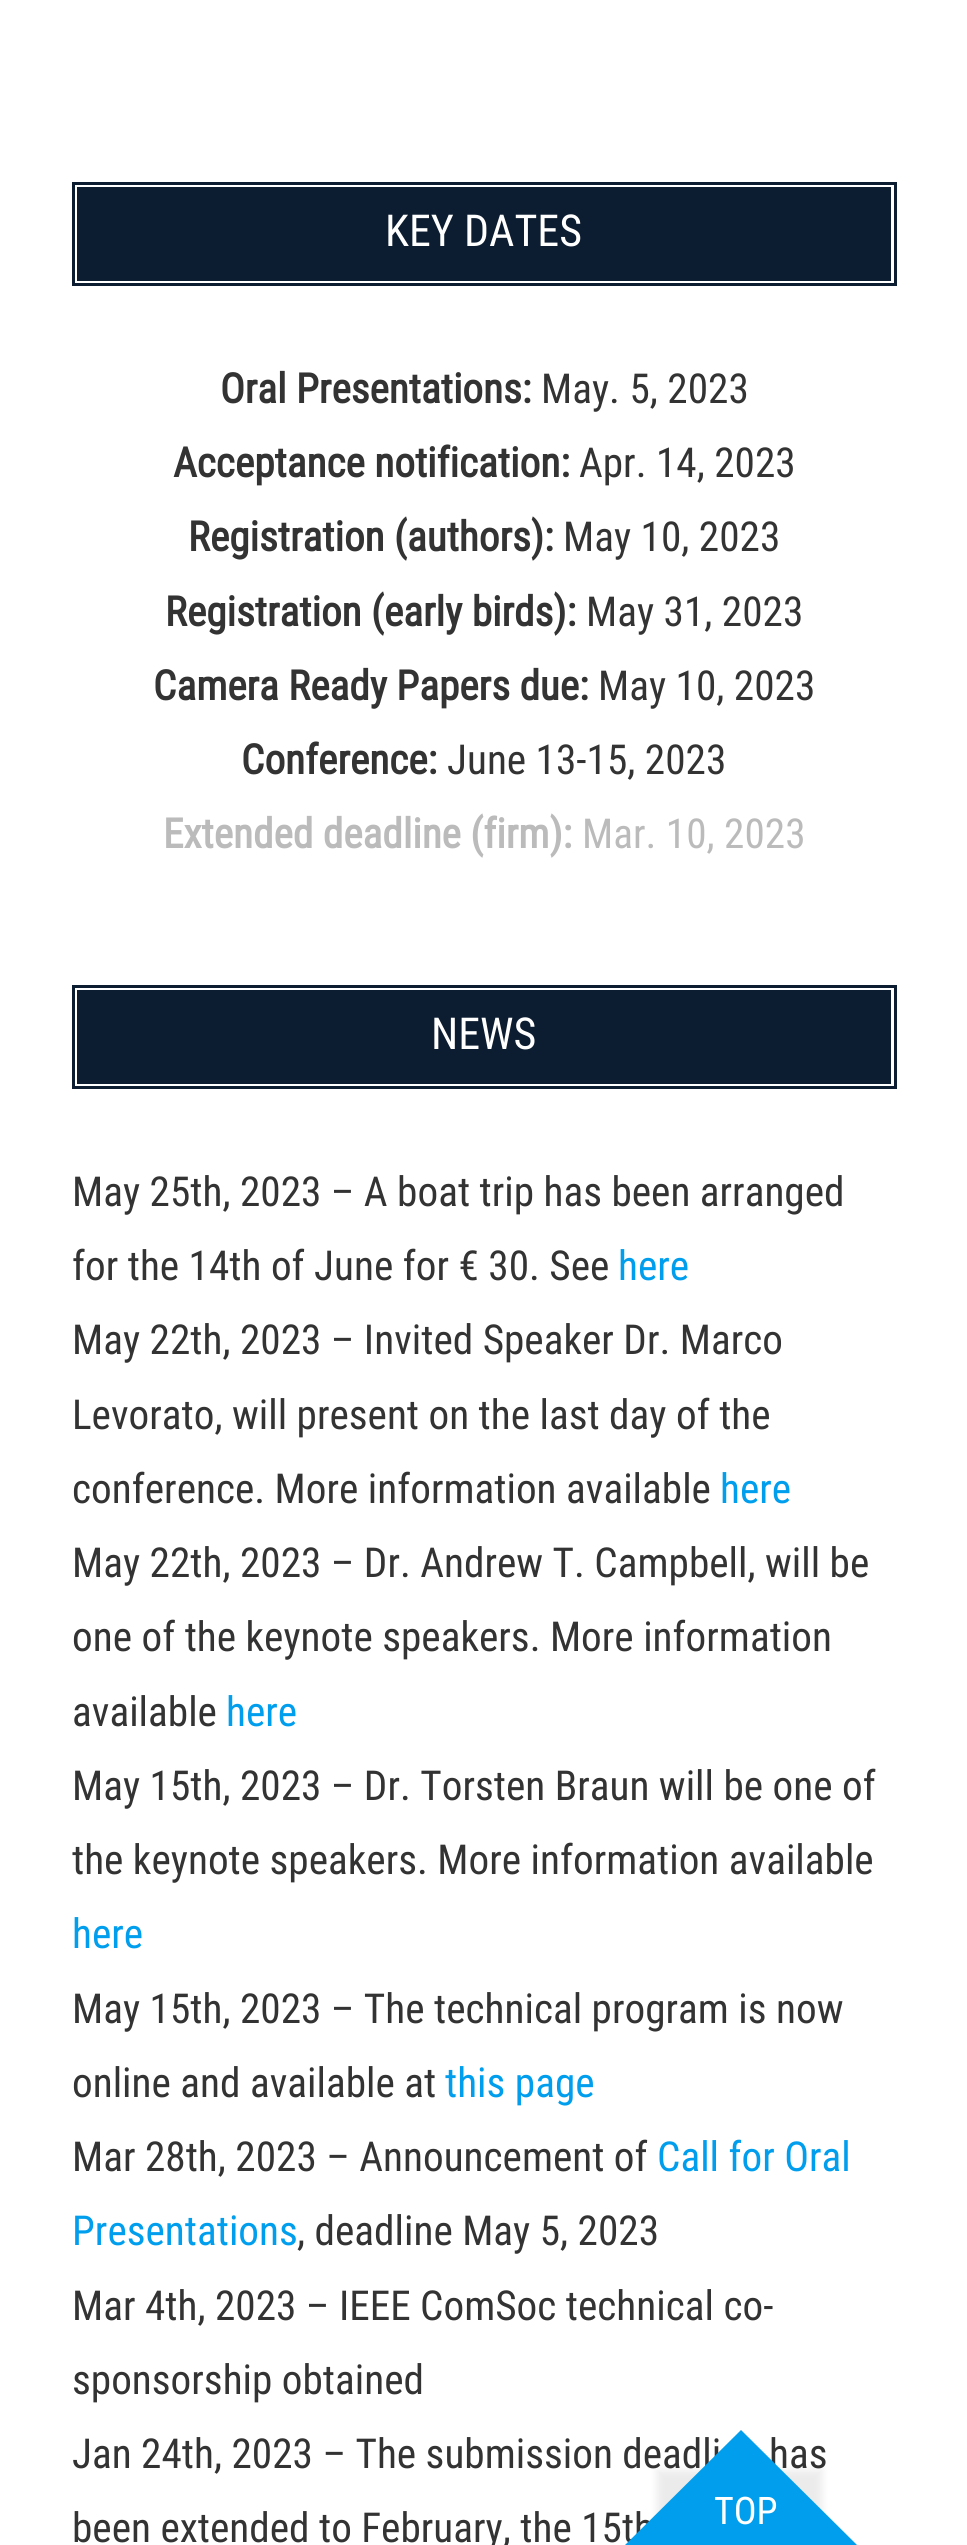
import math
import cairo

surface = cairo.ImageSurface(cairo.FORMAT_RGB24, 967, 2545)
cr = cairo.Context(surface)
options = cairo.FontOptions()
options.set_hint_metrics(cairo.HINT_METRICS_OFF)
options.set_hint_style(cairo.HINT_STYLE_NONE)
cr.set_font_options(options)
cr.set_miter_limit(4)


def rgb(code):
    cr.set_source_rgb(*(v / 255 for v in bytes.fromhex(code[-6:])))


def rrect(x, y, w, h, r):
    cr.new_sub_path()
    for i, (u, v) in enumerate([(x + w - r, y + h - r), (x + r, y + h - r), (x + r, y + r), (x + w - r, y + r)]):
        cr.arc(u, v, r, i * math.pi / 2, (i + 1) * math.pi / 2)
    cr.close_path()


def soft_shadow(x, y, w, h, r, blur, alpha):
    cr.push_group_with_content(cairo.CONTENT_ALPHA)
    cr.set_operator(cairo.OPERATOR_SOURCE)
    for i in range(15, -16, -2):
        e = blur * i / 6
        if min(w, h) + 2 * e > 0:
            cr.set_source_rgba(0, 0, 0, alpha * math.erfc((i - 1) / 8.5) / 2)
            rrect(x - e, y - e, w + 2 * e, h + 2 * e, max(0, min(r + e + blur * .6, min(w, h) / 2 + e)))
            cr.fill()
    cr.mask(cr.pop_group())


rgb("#ffffff")
cr.paint()
rgb("#0d1d31")
cr.rectangle(77, 187, 814, 94)
cr.fill()
cr.rectangle(73.5, 183.5, 822, 101)
cr.set_line_width(3)
cr.stroke()
cr.rectangle(77, 990, 814, 94)
cr.fill()
cr.rectangle(73.5, 986.5, 822, 101)
cr.stroke()
rgb("#000000")
soft_shadow(657, 2470, 165, 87, 0, 4, 0.08)
cr.select_font_face("Roboto Condensed")
cr.set_font_size(44)
rgb("#ffffff")
cr.move_to(385, 246)
cr.show_text("KEY DATES")
cr.select_font_face("Roboto Condensed", cairo.FONT_SLANT_NORMAL, cairo.FONT_WEIGHT_BOLD)
cr.set_font_size(41.25)
rgb("#333333")
cr.move_to(220, 403)
cr.show_text("Oral Presentations:")
cr.select_font_face("Roboto Condensed")
cr.move_to(541, 403)
cr.show_text("May. 5, 2023")
cr.select_font_face("Roboto Condensed", cairo.FONT_SLANT_NORMAL, cairo.FONT_WEIGHT_BOLD)
cr.move_to(173, 477)
cr.show_text("Acceptance notification:")
cr.select_font_face("Roboto Condensed")
cr.move_to(579, 477)
cr.show_text("Apr. 14, 2023")
cr.select_font_face("Roboto Condensed", cairo.FONT_SLANT_NORMAL, cairo.FONT_WEIGHT_BOLD)
cr.move_to(188, 551)
cr.show_text("Registration (authors):")
cr.select_font_face("Roboto Condensed")
cr.move_to(563, 551)
cr.show_text("May 10, 2023")
cr.select_font_face("Roboto Condensed", cairo.FONT_SLANT_NORMAL, cairo.FONT_WEIGHT_BOLD)
cr.move_to(165, 626)
cr.show_text("Registration (early birds):")
cr.select_font_face("Roboto Condensed")
cr.move_to(586, 626)
cr.show_text("May 31, 2023")
cr.select_font_face("Roboto Condensed", cairo.FONT_SLANT_NORMAL, cairo.FONT_WEIGHT_BOLD)
cr.move_to(153, 700)
cr.show_text("Camera Ready Papers due:")
cr.select_font_face("Roboto Condensed")
cr.move_to(598, 700)
cr.show_text("May 10, 2023")
cr.select_font_face("Roboto Condensed", cairo.FONT_SLANT_NORMAL, cairo.FONT_WEIGHT_BOLD)
cr.move_to(241, 774)
cr.show_text("Conference:")
cr.select_font_face("Roboto Condensed")
cr.move_to(447, 774)
cr.show_text("June 13-15, 2023")
cr.select_font_face("Roboto Condensed", cairo.FONT_SLANT_NORMAL, cairo.FONT_WEIGHT_BOLD)
rgb("#bbbbbb")
cr.move_to(163, 848)
cr.show_text("Extended deadline (firm):")
cr.select_font_face("Roboto Condensed")
cr.move_to(582, 848)
cr.show_text("Mar. 10, 2023")
cr.set_font_size(44)
rgb("#ffffff")
cr.move_to(431, 1049)
cr.show_text("NEWS")
cr.set_font_size(41.25)
rgb("#333333")
cr.move_to(72, 1206)
cr.show_text("May 25th, 2023 – A boat trip has been arranged")
cr.move_to(72, 1280)
cr.show_text("for the 14th of June for € 30. See")
rgb("#009eed")
cr.move_to(618, 1280)
cr.show_text("here")
rgb("#333333")
for x, y, s in [
    (72, 1354, "May 22th, 2023 – Invited Speaker Dr. Marco"),
    (72, 1429, "Levorato, will present on the last day of the"),
    (72, 1503, "conference. More information available"),
]:
    cr.move_to(x, y)
    cr.show_text(s)
rgb("#009eed")
cr.move_to(720, 1503)
cr.show_text("here")
rgb("#333333")
for x, y, s in [
    (72, 1577, "May 22th, 2023 – Dr. Andrew T. Campbell, will be"),
    (72, 1651, "one of the keynote speakers. More information"),
    (72, 1726, "available"),
]:
    cr.move_to(x, y)
    cr.show_text(s)
rgb("#009eed")
cr.move_to(226, 1726)
cr.show_text("here")
rgb("#333333")
cr.move_to(72, 1800)
cr.show_text("May 15th, 2023 – Dr. Torsten Braun will be one of")
cr.move_to(72, 1874)
cr.show_text("the keynote speakers. More information available")
rgb("#009eed")
cr.move_to(72, 1948)
cr.show_text("here")
rgb("#333333")
cr.move_to(72, 2023)
cr.show_text("May 15th, 2023 – The technical program is now")
cr.move_to(72, 2097)
cr.show_text("online and available at")
rgb("#009eed")
cr.move_to(445, 2097)
cr.show_text("this page")
rgb("#333333")
cr.move_to(72, 2171)
cr.show_text("Mar 28th, 2023 – Announcement of")
rgb("#009eed")
cr.move_to(657, 2171)
cr.show_text("Call for Oral")
cr.move_to(72, 2245)
cr.show_text("Presentations")
rgb("#333333")
for x, y, s in [
    (297, 2245, ", deadline May 5, 2023"),
    (72, 2320, "Mar 4th, 2023 – IEEE ComSoc technical co-"),
    (72, 2394, "sponsorship obtained"),
    (72, 2468, "Jan 24th, 2023 – The submission deadli"),
    (769, 2468, "has"),
    (72, 2542, "been extended to February, the 15th"),
]:
    cr.move_to(x, y)
    cr.show_text(s)
rgb("#009eed")
cr.new_path()
cr.move_to(741, 2430)
cr.line_to(858, 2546)
cr.line_to(741, 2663)
cr.line_to(624, 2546)
cr.close_path()
cr.fill()
cr.set_font_size(38)
rgb("#ffffff")
cr.move_to(714, 2524)
cr.show_text("TOP")
surface.write_to_png("page.png")
